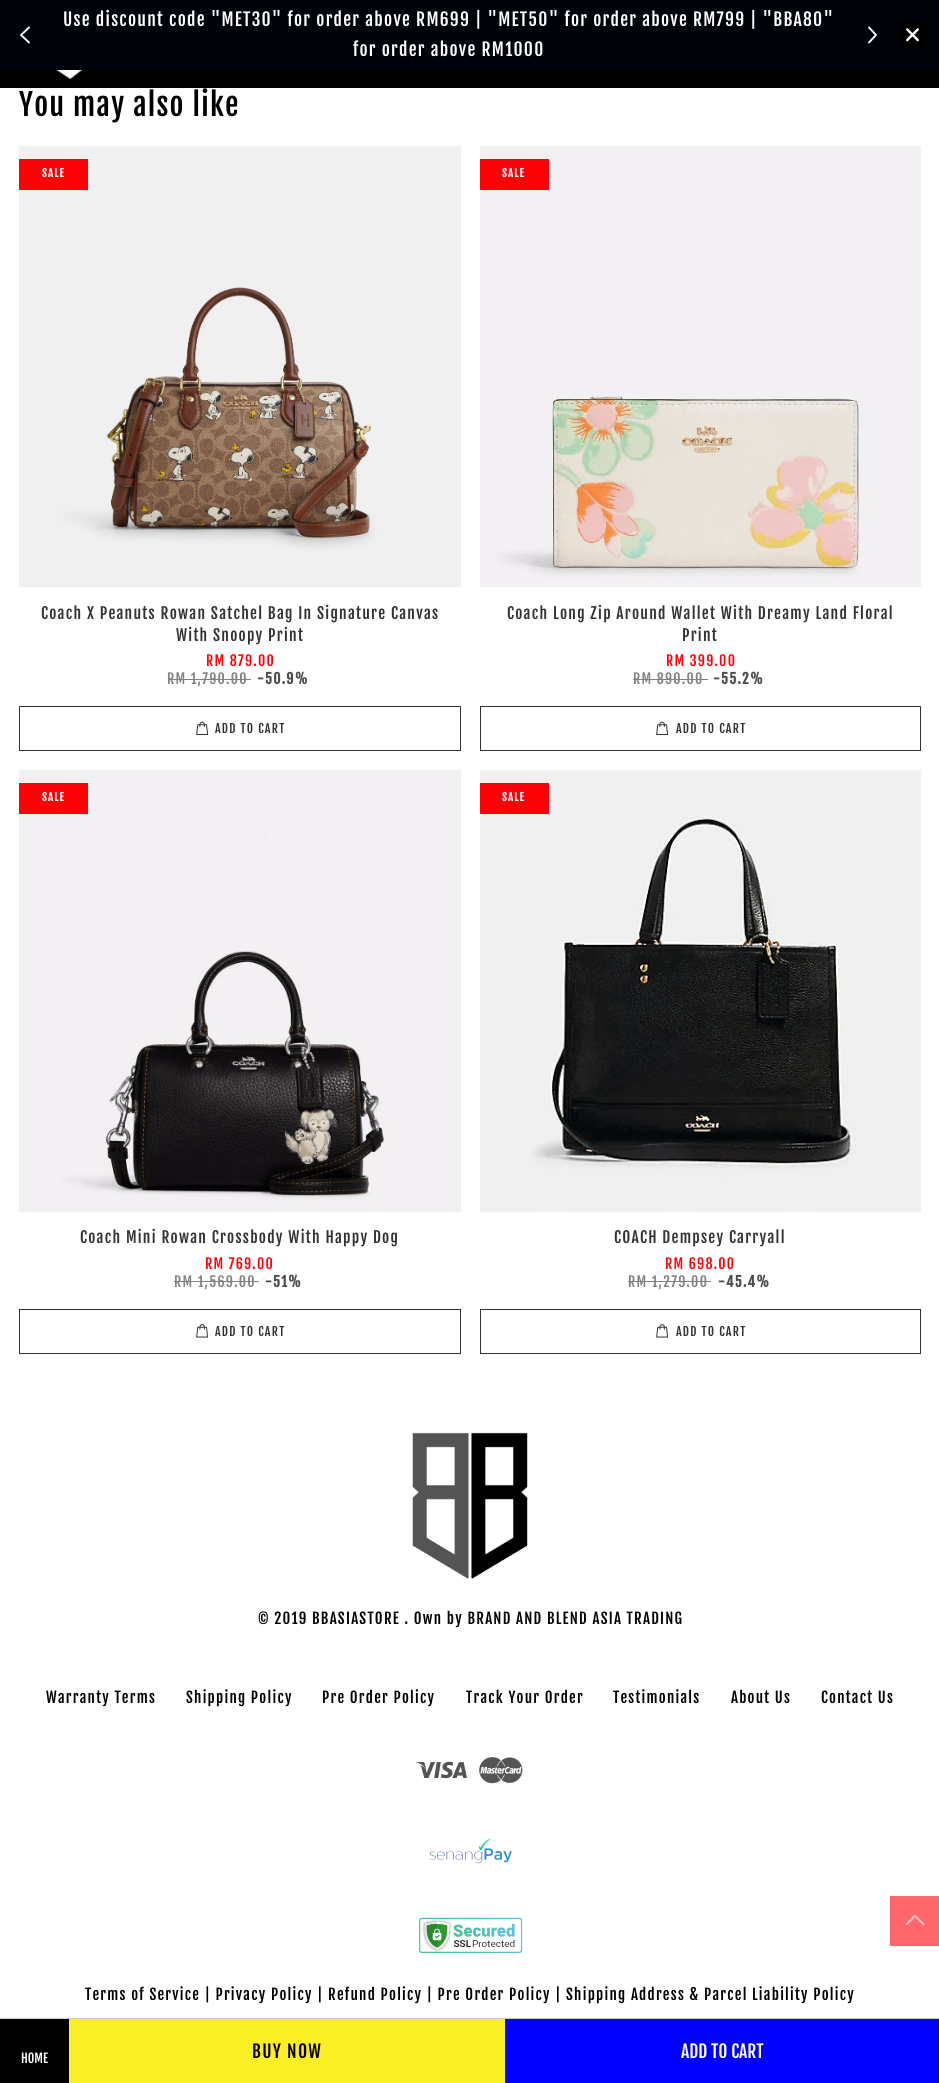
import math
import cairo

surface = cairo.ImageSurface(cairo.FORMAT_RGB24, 939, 2083)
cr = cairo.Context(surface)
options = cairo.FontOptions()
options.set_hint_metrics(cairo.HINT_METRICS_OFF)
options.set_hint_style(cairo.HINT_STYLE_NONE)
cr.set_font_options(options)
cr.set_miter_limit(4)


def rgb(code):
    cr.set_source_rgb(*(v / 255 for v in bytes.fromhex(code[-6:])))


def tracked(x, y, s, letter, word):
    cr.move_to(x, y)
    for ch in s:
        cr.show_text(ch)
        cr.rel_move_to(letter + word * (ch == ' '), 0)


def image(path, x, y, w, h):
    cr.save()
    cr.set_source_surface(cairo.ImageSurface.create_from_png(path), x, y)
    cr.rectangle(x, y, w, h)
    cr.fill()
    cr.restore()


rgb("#ffffff")
cr.paint()
rgb("#000209")
cr.rectangle(0, 0, 939, 70)
cr.fill()
cr.new_path()
cr.move_to(29, 27.5)
cr.line_to(21, 35)
cr.line_to(29, 42.5)
rgb("#ffffff")
cr.set_line_width(1.9)
cr.set_line_cap(cairo.LINE_CAP_ROUND)
cr.set_line_join(cairo.LINE_JOIN_ROUND)
cr.stroke()
cr.new_path()
cr.move_to(869, 27.5)
cr.line_to(876, 35)
cr.line_to(869, 42.5)
cr.stroke()
rgb("#000000")
cr.arc(913, 35, 15, 0, 2 * math.pi)
cr.fill()
rgb("#ffffff")
cr.new_path()
cr.move_to(918.5, 28.5)
cr.curve_to(919, 29, 919, 30, 918.5, 30.5)
cr.line_to(908, 41)
cr.curve_to(907.5, 41.5, 907, 41.5, 906.5, 41)
cr.curve_to(906, 40.5, 906, 39.5, 906.5, 39)
cr.line_to(917, 28.5)
cr.curve_to(917.5, 28, 918, 28, 918.5, 28.5)
cr.close_path()
cr.fill()
cr.new_path()
cr.move_to(906.5, 28.5)
cr.curve_to(907, 28, 907.5, 28, 908, 28.5)
cr.line_to(918.5, 39)
cr.curve_to(919, 39.5, 919, 40.5, 918.5, 41)
cr.curve_to(918, 41.5, 917.5, 41.5, 917, 41)
cr.line_to(906.5, 30.5)
cr.curve_to(906, 30, 906, 29, 906.5, 28.5)
cr.close_path()
cr.fill()
rgb("#000000")
cr.rectangle(0, 70, 939, 18)
cr.fill()
image("img/1.png", 56, 70, 27, 10)
image("img/2.png", 19, 146, 442, 442)
rgb("#ff0008")
cr.rectangle(19, 159, 69, 31)
cr.fill()
rgb("#828282")
cr.rectangle(168, 679, 83, 1)
cr.fill()
cr.rectangle(19.5, 706.5, 441, 44)
rgb("#333333")
cr.set_line_width(1)
cr.set_line_cap(cairo.LINE_CAP_BUTT)
cr.set_line_join(cairo.LINE_JOIN_MITER)
cr.stroke()
image("img/3.png", 196, 721, 13, 14)
image("img/4.png", 480, 146, 441, 442)
rgb("#ff0008")
cr.rectangle(480, 159, 69, 31)
cr.fill()
rgb("#828282")
cr.rectangle(633, 679, 75, 1)
cr.fill()
cr.rectangle(480.5, 706.5, 440, 44)
rgb("#333333")
cr.stroke()
image("img/3.png", 656, 721, 13, 14)
image("img/5.png", 19, 770, 442, 443)
rgb("#ff0008")
cr.rectangle(19, 783, 69, 31)
cr.fill()
rgb("#828282")
cr.rectangle(174, 1281, 85, 1)
cr.fill()
cr.rectangle(19.5, 1309.5, 441, 44)
rgb("#333333")
cr.stroke()
image("img/6.png", 196, 1324, 13, 14)
image("img/7.png", 480, 770, 441, 443)
rgb("#ff0008")
cr.rectangle(480, 783, 69, 31)
cr.fill()
rgb("#828282")
cr.rectangle(628, 1281, 83, 1)
cr.fill()
cr.rectangle(480.5, 1309.5, 440, 44)
rgb("#333333")
cr.stroke()
image("img/6.png", 656, 1324, 13, 14)
for x, y, w, h, color in [
    (0, 2018, 939, 1, "#cccccc"),
    (0, 2019, 69, 64, "#000000"),
    (69, 2019, 436, 64, "#f9ef24"),
    (505, 2019, 434, 64, "#0000ff"),
]:
    rgb(color)
    cr.rectangle(x, y, w, h)
    cr.fill()
image("img/8.png", 412, 1432, 116, 147)
image("img/9.png", 416, 1761, 51, 18)
image("img/10.png", 479, 1757, 44, 27)
image("img/11.png", 429, 1838, 83, 26)
image("img/12.png", 419, 1917, 104, 36)
rgb("#ff666b")
cr.rectangle(890, 1896, 49, 50)
cr.fill()
image("img/13.png", 905, 1914, 20, 12)
cr.select_font_face("Fjalla One")
cr.set_font_size(17.5)
rgb("#ffffff")
tracked(63, 26, "Use discount code \"MET30\" for order above RM699 | \"MET50\" for order above RM799 | \"BBA80\"", 1.25, 0)
tracked(353, 56, "for order above RM1000", 1.25, 0)
cr.set_font_size(30)
rgb("#000000")
tracked(19, 116, "You may also like", 1.25, 0)
cr.select_font_face("Fjalla One", cairo.FONT_SLANT_NORMAL, cairo.FONT_WEIGHT_BOLD)
cr.set_font_size(10.5)
rgb("#ffffff")
tracked(42, 177, "SALE", 1.25, 0)
cr.select_font_face("Fjalla One")
cr.set_font_size(15.4)
rgb("#333333")
tracked(41, 619, "Coach X Peanuts Rowan Satchel Bag In Signature Canvas", 1.25, 0)
tracked(176, 641, "With Snoopy Print", 1.25, 0)
cr.set_font_size(14)
rgb("#ff0008")
tracked(206, 666, "RM 879.00", 1.25, 0)
rgb("#828282")
tracked(167, 684, "RM 1,790.00", 1.25, 0)
cr.select_font_face("Fjalla One", cairo.FONT_SLANT_NORMAL, cairo.FONT_WEIGHT_BOLD)
rgb("#4d4d4d")
tracked(257, 684, "-50.9%", 1.25, 0)
cr.select_font_face("Fjalla One")
cr.set_font_size(12)
rgb("#333333")
tracked(215, 733, "ADD TO CART", 1.25, 0)
cr.select_font_face("Fjalla One", cairo.FONT_SLANT_NORMAL, cairo.FONT_WEIGHT_BOLD)
cr.set_font_size(10.5)
rgb("#ffffff")
tracked(502, 177, "SALE", 1.25, 0)
cr.select_font_face("Fjalla One")
cr.set_font_size(15.4)
rgb("#333333")
tracked(507, 619, "Coach Long Zip Around Wallet With Dreamy Land Floral", 1.25, 0)
tracked(682, 641, "Print", 1.25, 0)
cr.set_font_size(14)
rgb("#ff0008")
tracked(666, 666, "RM 399.00", 1.25, 0)
rgb("#828282")
tracked(633, 684, "RM 890.00", 1.25, 0)
cr.select_font_face("Fjalla One", cairo.FONT_SLANT_NORMAL, cairo.FONT_WEIGHT_BOLD)
rgb("#4d4d4d")
tracked(713, 684, "-55.2%", 1.25, 0)
cr.select_font_face("Fjalla One")
cr.set_font_size(12)
rgb("#333333")
tracked(676, 733, "ADD TO CART", 1.25, 0)
cr.select_font_face("Fjalla One", cairo.FONT_SLANT_NORMAL, cairo.FONT_WEIGHT_BOLD)
cr.set_font_size(10.5)
rgb("#ffffff")
tracked(42, 801, "SALE", 1.25, 0)
cr.select_font_face("Fjalla One")
cr.set_font_size(15.4)
rgb("#333333")
tracked(80, 1243, "Coach Mini Rowan Crossbody With Happy Dog", 1.25, 0)
cr.set_font_size(14)
rgb("#ff0008")
tracked(205, 1269, "RM 769.00", 1.25, 0)
rgb("#828282")
tracked(174, 1287, "RM 1,569.00", 1.25, 0)
cr.select_font_face("Fjalla One", cairo.FONT_SLANT_NORMAL, cairo.FONT_WEIGHT_BOLD)
rgb("#4d4d4d")
tracked(265, 1287, "-51%", 1.25, 0)
cr.select_font_face("Fjalla One")
cr.set_font_size(12)
rgb("#333333")
tracked(215, 1336, "ADD TO CART", 1.25, 0)
cr.select_font_face("Fjalla One", cairo.FONT_SLANT_NORMAL, cairo.FONT_WEIGHT_BOLD)
cr.set_font_size(10.5)
rgb("#ffffff")
tracked(502, 801, "SALE", 1.25, 0)
cr.select_font_face("Fjalla One")
cr.set_font_size(15.4)
rgb("#333333")
tracked(614, 1243, "COACH Dempsey Carryall", 1.25, 0)
cr.set_font_size(14)
rgb("#ff0008")
tracked(665, 1269, "RM 698.00", 1.25, 0)
rgb("#828282")
tracked(628, 1287, "RM 1,279.00", 1.25, 0)
cr.select_font_face("Fjalla One", cairo.FONT_SLANT_NORMAL, cairo.FONT_WEIGHT_BOLD)
rgb("#4d4d4d")
tracked(718, 1287, "-45.4%", 1.25, 0)
cr.select_font_face("Fjalla One")
cr.set_font_size(12)
rgb("#333333")
tracked(676, 1336, "ADD TO CART", 1.25, 0)
cr.set_font_size(12.5)
rgb("#ffffff")
cr.move_to(21, 2063)
cr.show_text("HOME")
cr.set_font_size(17.5)
rgb("#090000")
tracked(252, 2058, "BUY NOW", 1.25, 0)
rgb("#ffffff")
cr.move_to(681, 2058)
cr.show_text("ADD TO CART")
cr.set_font_size(14.88)
rgb("#000000")
for x, y, s in [
    (258, 1624, "© 2019 BBASIASTORE . Own by BRAND AND BLEND ASIA TRADING"),
    (46, 1703, "Warranty Terms"),
    (186, 1703, "Shipping Policy"),
    (322, 1703, "Pre Order Policy"),
    (466, 1703, "Track Your Order"),
    (613, 1703, "Testimonials"),
    (731, 1703, "About Us"),
    (821, 1703, "Contact Us"),
    (85, 2000, "Terms of Service | Privacy Policy | Refund Policy | Pre Order Policy | Shipping Address & Parcel Liability Policy"),
]:
    tracked(x, y, s, 1.25, 0)
surface.write_to_png("page.png")
